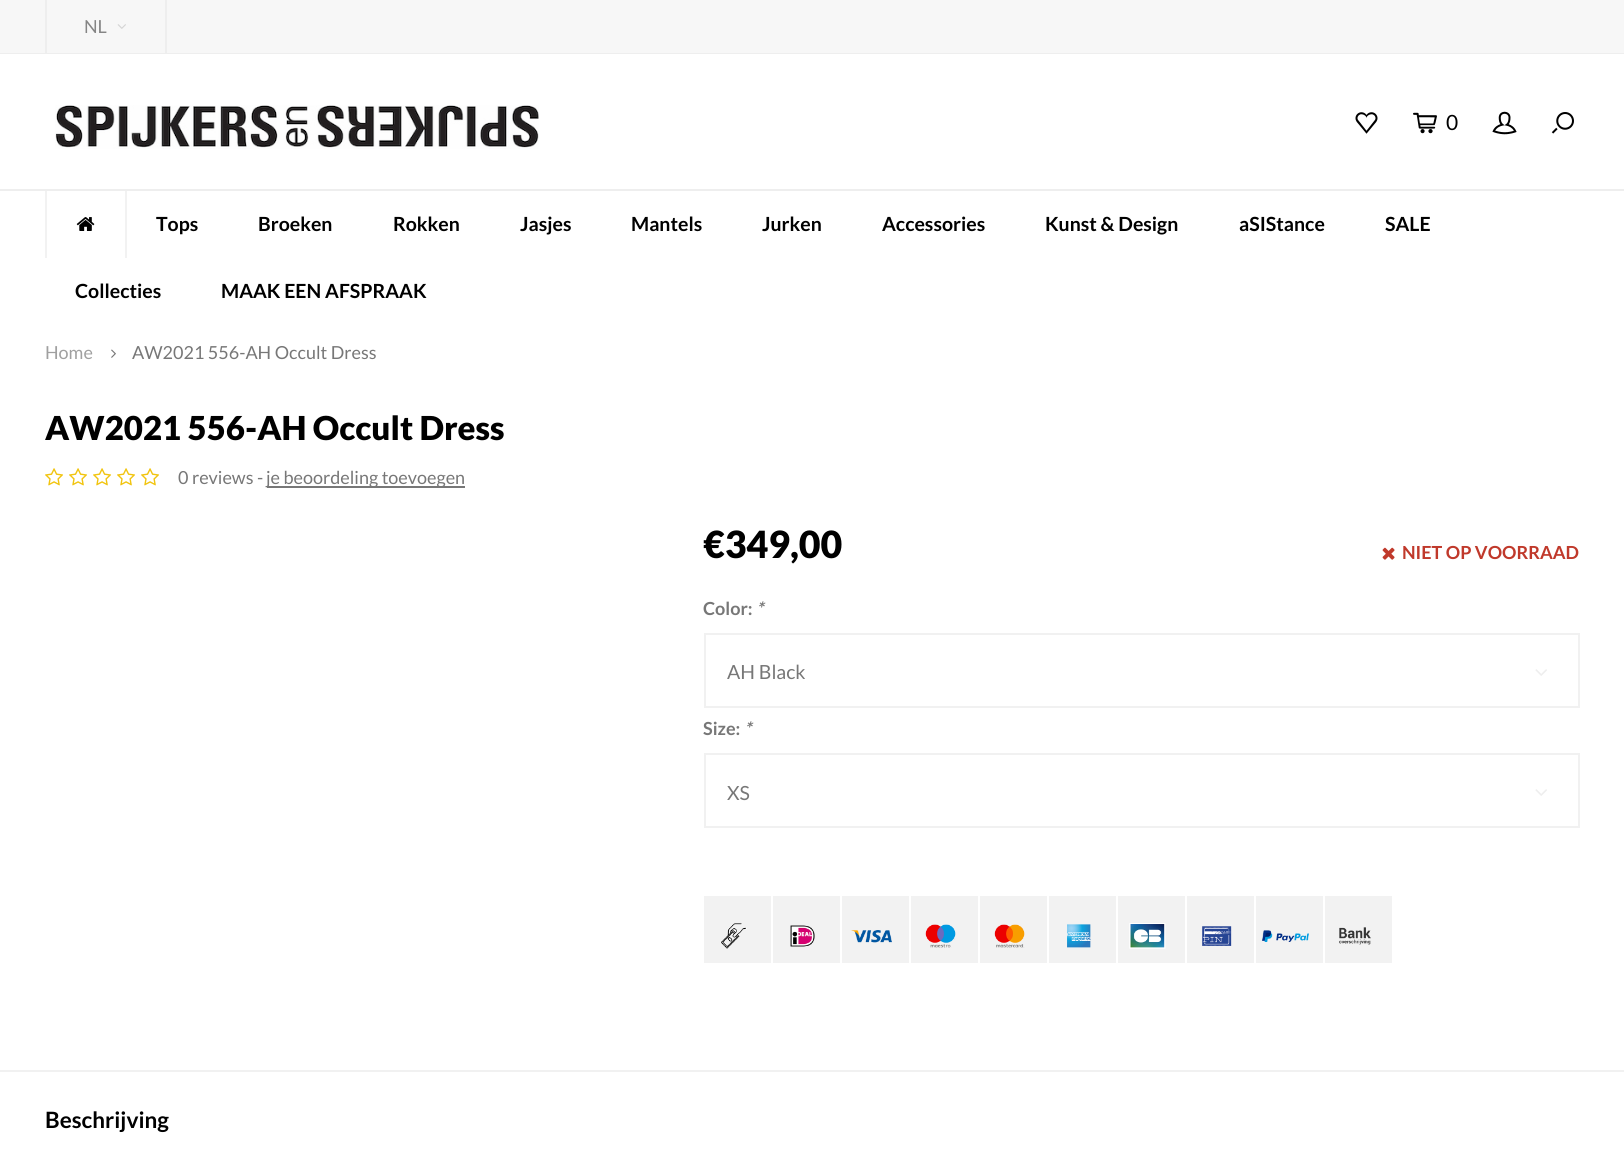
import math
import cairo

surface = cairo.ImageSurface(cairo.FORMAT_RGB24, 1624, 1162)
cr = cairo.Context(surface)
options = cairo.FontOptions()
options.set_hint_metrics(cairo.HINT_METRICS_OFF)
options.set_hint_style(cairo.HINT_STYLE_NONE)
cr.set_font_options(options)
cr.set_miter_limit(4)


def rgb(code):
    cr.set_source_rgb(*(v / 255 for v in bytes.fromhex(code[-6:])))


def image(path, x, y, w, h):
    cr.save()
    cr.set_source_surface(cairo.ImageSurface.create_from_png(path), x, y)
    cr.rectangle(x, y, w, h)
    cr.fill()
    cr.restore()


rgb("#ffffff")
cr.paint()
for x, y, w, h, color in [
    (0, 0, 1624, 53, "#f7f7f7"),
    (0, 53, 1624, 1, "#eeeeee"),
    (165, 0, 2, 53, "#eeeeee"),
    (45, 0, 2, 53, "#eeeeee"),
]:
    rgb(color)
    cr.rectangle(x, y, w, h)
    cr.fill()
image("img/1.png", 117, 24, 9, 5)
cr.rectangle(0, 189, 1624, 2)
cr.fill()
image("img/2.png", 55, 105, 484, 44)
image("img/3.png", 1355, 112, 23, 22)
image("img/4.png", 1413, 112, 24, 22)
image("img/5.png", 1492, 111, 25, 24)
image("img/6.png", 1551, 112, 23, 22)
rgb("#f2f2f2")
cr.rectangle(125, 191, 2, 67)
cr.fill()
cr.rectangle(45, 191, 2, 67)
cr.fill()
image("img/7.png", 76, 217, 19, 14)
image("img/8.png", 111, 349, 5, 9)
image("img/9.png", 45, 468, 19, 18)
image("img/9.png", 69, 468, 19, 18)
image("img/9.png", 93, 468, 19, 18)
image("img/9.png", 117, 468, 19, 18)
image("img/9.png", 141, 468, 19, 18)
rgb("#777777")
cr.rectangle(267, 486, 198, 2)
cr.fill()
image("img/10.png", 1382, 547, 13, 13)
cr.rectangle(705, 634, 874, 73)
rgb("#f1f1f1")
cr.stroke()
image("img/11.png", 1535, 669, 12, 7)
cr.rectangle(705, 754, 874, 73)
cr.stroke()
image("img/11.png", 1535, 789, 12, 7)
rgb("#f2f2f2")
cr.rectangle(704, 896, 67, 67)
cr.fill()
image("img/12.png", 720, 923, 27, 26)
cr.rectangle(773, 896, 67, 67)
cr.fill()
image("img/13.png", 790, 925, 25, 22)
cr.rectangle(842, 896, 67, 67)
cr.fill()
image("img/14.png", 851, 930, 41, 13)
cr.rectangle(911, 896, 67, 67)
cr.fill()
image("img/15.png", 925, 924, 31, 24)
cr.rectangle(980, 896, 67, 67)
cr.fill()
image("img/16.png", 994, 924, 31, 24)
cr.rectangle(1049, 896, 67, 67)
cr.fill()
image("img/17.png", 1067, 924, 24, 24)
cr.rectangle(1118, 896, 67, 67)
cr.fill()
image("img/18.png", 1129, 923, 37, 26)
cr.rectangle(1187, 896, 67, 67)
cr.fill()
image("img/19.png", 1202, 926, 30, 20)
cr.rectangle(1256, 896, 67, 67)
cr.fill()
image("img/20.png", 1262, 930, 47, 12)
cr.rectangle(1325, 896, 67, 67)
cr.fill()
image("img/21.png", 1339, 927, 32, 18)
rgb("#f1f1f1")
cr.rectangle(0, 1070, 1624, 2)
cr.fill()
cr.select_font_face("Lato")
cr.set_font_size(18)
rgb("#858585")
cr.move_to(84, 33)
cr.show_text("NL")
cr.set_font_size(21)
rgb("#000000")
cr.move_to(1446, 130)
cr.show_text("0")
cr.select_font_face("Lato", cairo.FONT_SLANT_NORMAL, cairo.FONT_WEIGHT_BOLD)
cr.set_font_size(19.5)
for x, y, s in [
    (156, 231, "Tops"),
    (258, 231, "Broeken"),
    (393, 231, "Rokken"),
    (520, 231, "Jasjes"),
    (631, 231, "Mantels"),
    (762, 231, "Jurken"),
    (882, 231, "Accessories"),
    (1045, 231, "Kunst & Design"),
    (1239, 231, "aSIStance"),
    (1385, 231, "SALE"),
    (75, 298, "Collecties"),
    (221, 298, "MAAK EEN AFSPRAAK"),
]:
    cr.move_to(x, y)
    cr.show_text(s)
cr.select_font_face("Lato")
cr.set_font_size(18)
rgb("#a0a0a0")
cr.move_to(45, 359)
cr.show_text("Home")
rgb("#777777")
cr.move_to(132, 359)
cr.show_text("AW2021 556-AH Occult Dress")
cr.select_font_face("Lato Black")
cr.set_font_size(33)
rgb("#000000")
cr.move_to(45, 440)
cr.show_text("AW2021 556-AH Occult Dress")
cr.select_font_face("Lato")
cr.set_font_size(18)
rgb("#777777")
cr.move_to(178, 484)
cr.show_text("0 reviews -")
cr.move_to(266, 484)
cr.show_text("je beoordeling toevoegen")
cr.select_font_face("Lato Black")
cr.set_font_size(37.5)
rgb("#000000")
cr.move_to(703, 558)
cr.show_text("€349,00")
cr.select_font_face("Lato", cairo.FONT_SLANT_NORMAL, cairo.FONT_WEIGHT_BOLD)
cr.set_font_size(18)
rgb("#c0392b")
cr.move_to(1402, 559)
cr.show_text("NIET OP VOORRAAD")
rgb("#777777")
cr.move_to(703, 615)
cr.show_text("Color:")
cr.select_font_face("Lato", cairo.FONT_SLANT_ITALIC, cairo.FONT_WEIGHT_BOLD)
cr.move_to(756, 615)
cr.show_text("*")
cr.select_font_face("Lato")
cr.set_font_size(19.5)
cr.move_to(727, 679)
cr.show_text("AH Black")
cr.select_font_face("Lato", cairo.FONT_SLANT_NORMAL, cairo.FONT_WEIGHT_BOLD)
cr.set_font_size(18)
cr.move_to(703, 735)
cr.show_text("Size:")
cr.select_font_face("Lato", cairo.FONT_SLANT_ITALIC, cairo.FONT_WEIGHT_BOLD)
cr.move_to(744, 735)
cr.show_text("*")
cr.select_font_face("Lato")
cr.set_font_size(19.5)
cr.move_to(727, 800)
cr.show_text("XS")
cr.select_font_face("Lato", cairo.FONT_SLANT_NORMAL, cairo.FONT_WEIGHT_BOLD)
cr.set_font_size(22.5)
rgb("#000000")
cr.move_to(45, 1128)
cr.show_text("Beschrijving")
surface.write_to_png("page.png")
